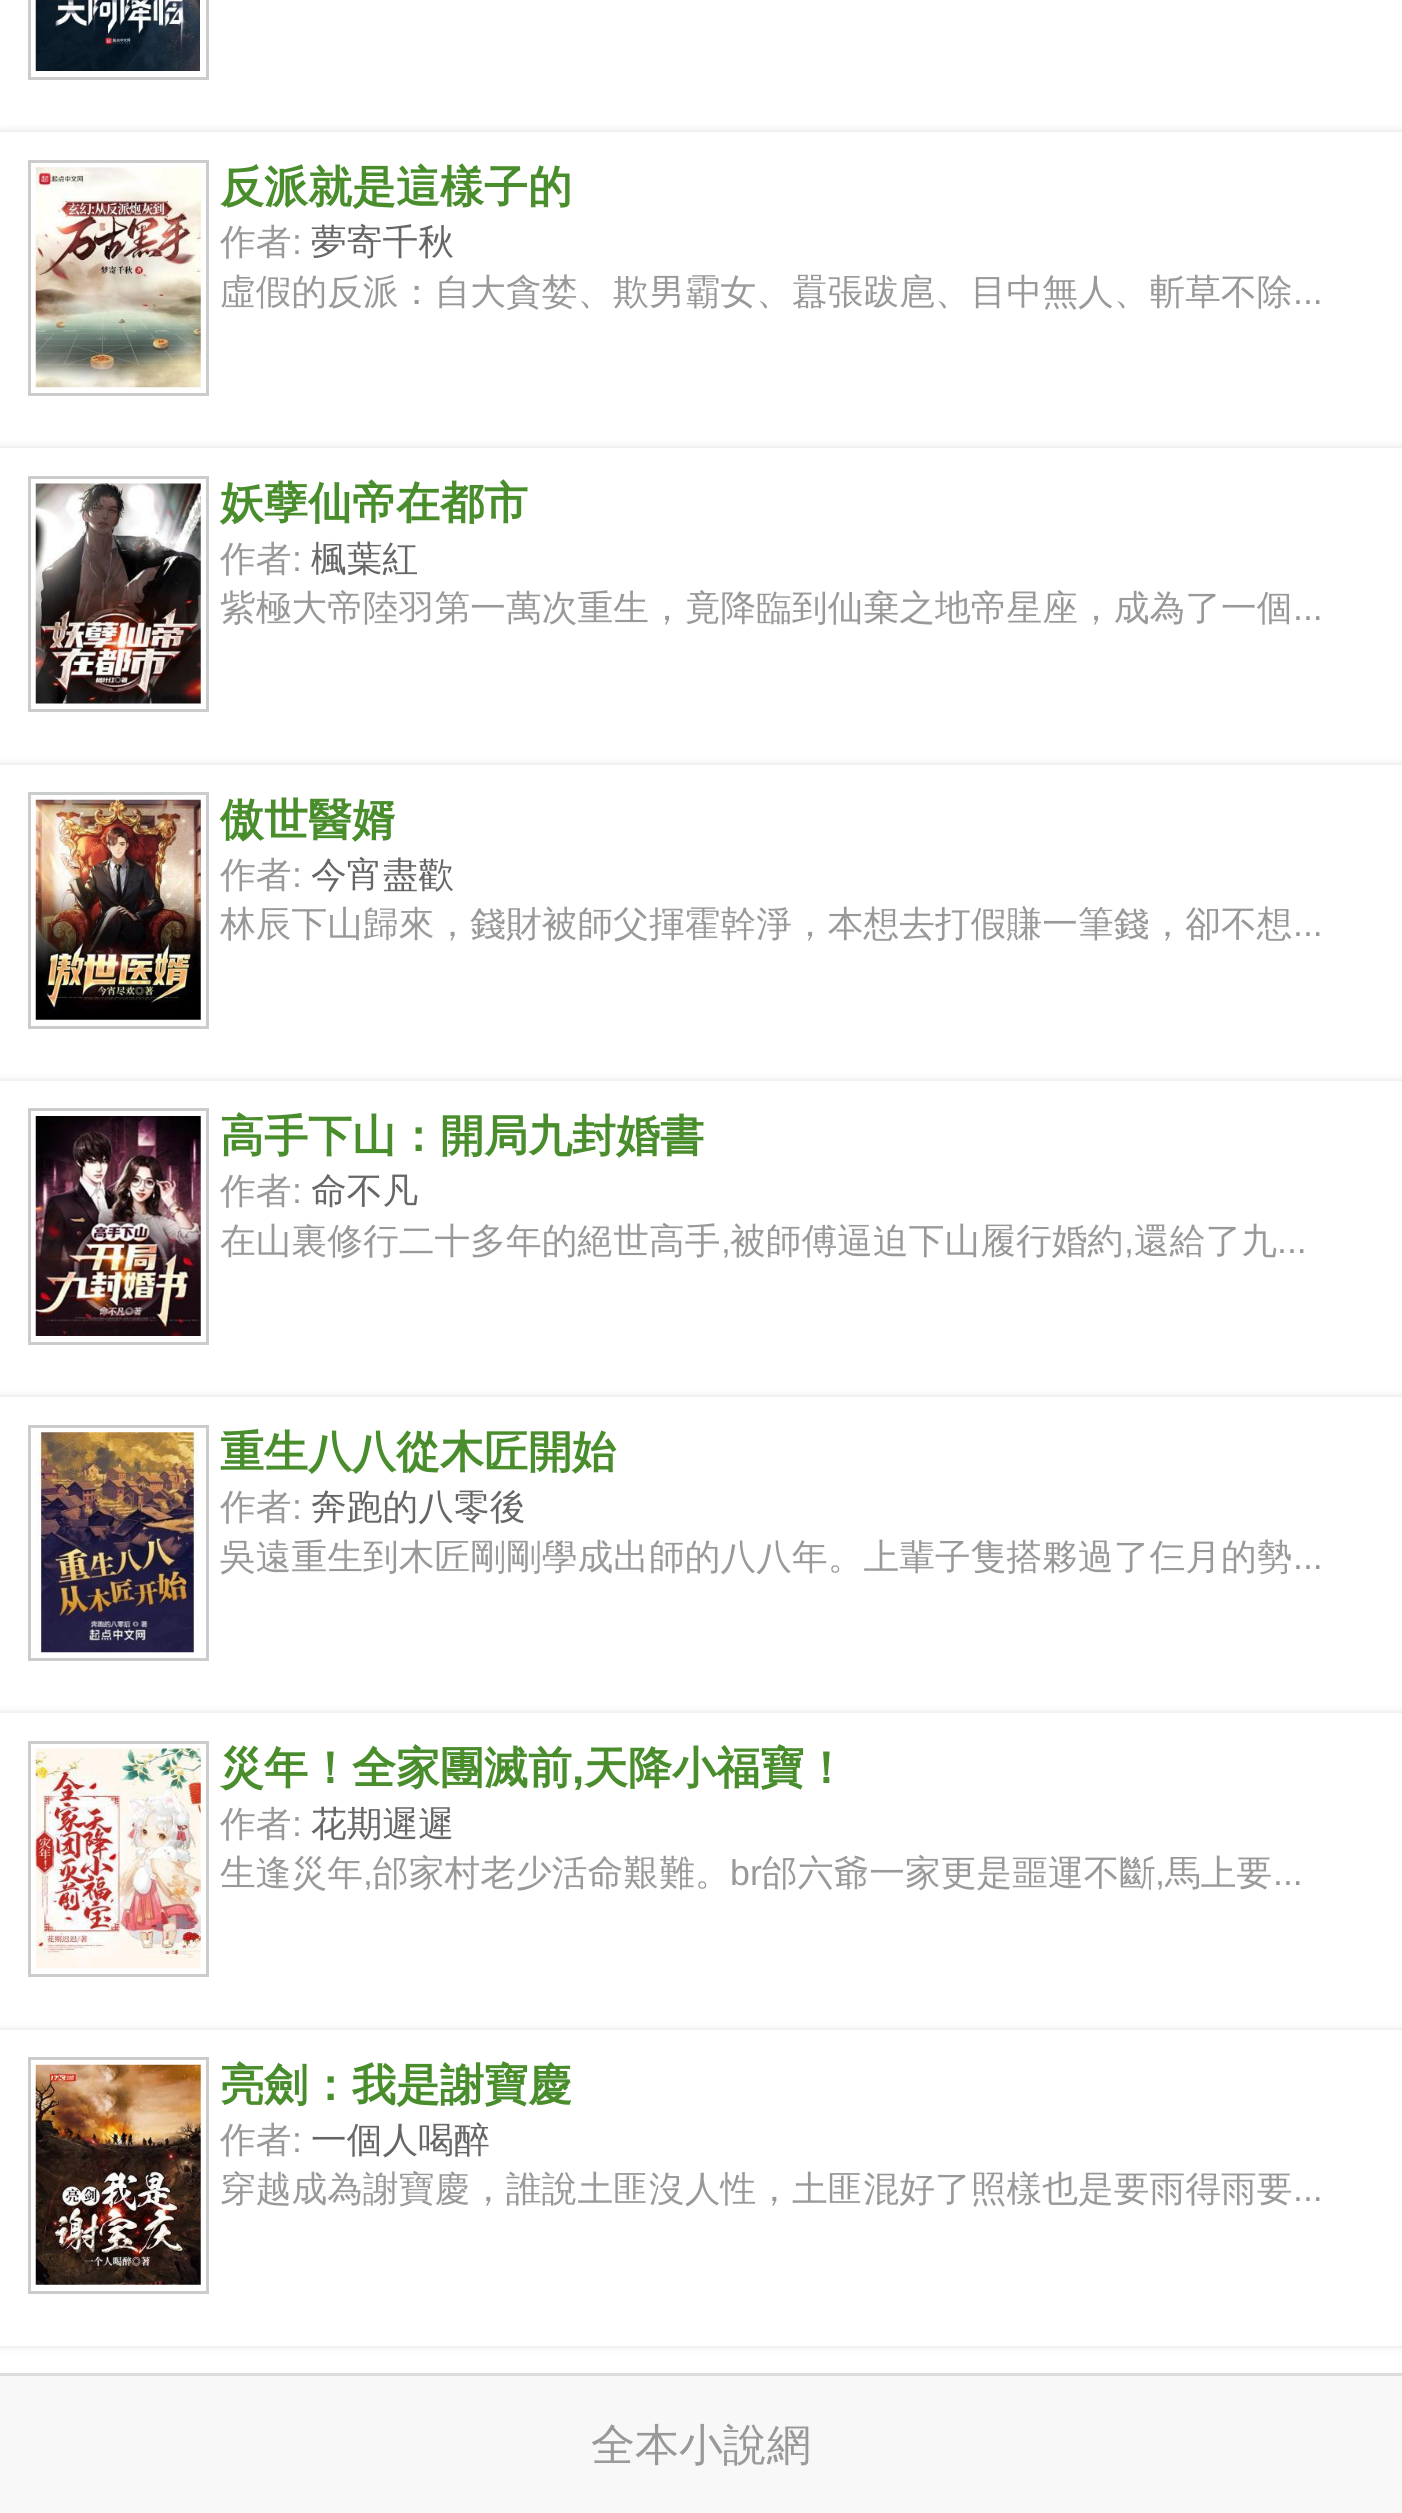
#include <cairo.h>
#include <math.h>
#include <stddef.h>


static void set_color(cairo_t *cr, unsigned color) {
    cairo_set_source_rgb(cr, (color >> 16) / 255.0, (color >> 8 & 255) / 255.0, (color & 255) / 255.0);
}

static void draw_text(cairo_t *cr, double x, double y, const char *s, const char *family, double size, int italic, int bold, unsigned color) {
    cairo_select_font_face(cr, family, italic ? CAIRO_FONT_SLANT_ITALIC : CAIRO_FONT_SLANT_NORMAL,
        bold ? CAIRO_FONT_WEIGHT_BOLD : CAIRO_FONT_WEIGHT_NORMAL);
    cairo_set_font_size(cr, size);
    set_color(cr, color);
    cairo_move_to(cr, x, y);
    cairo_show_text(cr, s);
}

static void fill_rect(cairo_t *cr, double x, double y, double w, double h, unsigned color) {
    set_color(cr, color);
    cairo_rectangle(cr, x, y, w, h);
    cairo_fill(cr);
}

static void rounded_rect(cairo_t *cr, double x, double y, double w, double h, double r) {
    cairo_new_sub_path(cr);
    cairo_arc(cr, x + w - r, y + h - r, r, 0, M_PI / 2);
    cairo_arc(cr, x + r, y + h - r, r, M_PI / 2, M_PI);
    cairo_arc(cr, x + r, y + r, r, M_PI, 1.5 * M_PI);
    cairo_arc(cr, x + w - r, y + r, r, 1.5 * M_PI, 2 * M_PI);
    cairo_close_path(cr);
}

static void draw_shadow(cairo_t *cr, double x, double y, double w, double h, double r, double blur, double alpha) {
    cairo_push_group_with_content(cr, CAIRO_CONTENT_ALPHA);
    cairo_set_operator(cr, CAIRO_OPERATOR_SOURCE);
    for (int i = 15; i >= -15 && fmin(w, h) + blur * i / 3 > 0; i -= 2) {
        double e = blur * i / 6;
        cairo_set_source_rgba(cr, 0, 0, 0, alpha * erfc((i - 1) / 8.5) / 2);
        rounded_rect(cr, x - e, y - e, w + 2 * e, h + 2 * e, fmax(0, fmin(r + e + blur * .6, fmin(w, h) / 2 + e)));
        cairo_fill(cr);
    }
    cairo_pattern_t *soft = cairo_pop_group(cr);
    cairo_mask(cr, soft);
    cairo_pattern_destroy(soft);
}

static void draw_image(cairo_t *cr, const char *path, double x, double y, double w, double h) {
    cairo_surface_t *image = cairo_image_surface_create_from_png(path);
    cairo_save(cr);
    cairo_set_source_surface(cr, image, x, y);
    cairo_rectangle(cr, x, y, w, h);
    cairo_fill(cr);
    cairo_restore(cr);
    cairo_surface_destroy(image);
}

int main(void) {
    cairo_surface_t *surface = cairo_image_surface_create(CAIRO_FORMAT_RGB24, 1402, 2513);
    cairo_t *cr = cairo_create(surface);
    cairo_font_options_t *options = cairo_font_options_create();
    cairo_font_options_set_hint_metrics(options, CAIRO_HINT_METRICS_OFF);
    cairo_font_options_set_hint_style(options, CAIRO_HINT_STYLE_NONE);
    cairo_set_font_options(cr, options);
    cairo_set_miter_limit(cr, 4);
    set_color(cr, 0xFFFFFF);
    cairo_paint(cr);
    cairo_rectangle(cr, 29.5, -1.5, 178, 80);
    set_color(cr, 0xCCCCCC);
    cairo_set_line_width(cr, 3);
    cairo_stroke(cr);
    draw_image(cr, "assets/img1.png", 35, 0, 166, 71);
    set_color(cr, 0xDDDDDD);
    draw_shadow(cr, 0, 132, 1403, 316, 0, 4, 1);
    fill_rect(cr, 0, 132, 1402, 316, 0xFFFFFF);
    cairo_rectangle(cr, 29.5, 161.5, 178, 233);
    set_color(cr, 0xCCCCCC);
    cairo_stroke(cr);
    draw_image(cr, "assets/img2.png", 35, 167, 166, 221);
    draw_text(cr, 220, 202, "反派就是這樣子的", "WenQuanYi Zen Hei", 44, 0, 1, 0x4A8D2D);
    draw_text(cr, 220, 254, "作者", "WenQuanYi Zen Hei Medium", 35.75, 0, 0, 0x999999);
    draw_text(cr, 292, 254, ":", "Liberation Sans", 35.75, 0, 0, 0x999999);
    draw_text(cr, 311, 254, "夢寄千秋", "WenQuanYi Zen Hei Medium", 35.75, 0, 0, 0x666666);
    draw_text(cr, 220, 304, "虛假的反派：自大貪婪、欺男霸女、囂張跋扈、目中無人、斬草不除", "WenQuanYi Zen Hei Medium", 35.75, 0, 0, 0x999999);
    draw_text(cr, 1293, 304, "...", "Liberation Sans", 35.75, 0, 0, 0x999999);
    set_color(cr, 0xDDDDDD);
    draw_shadow(cr, 0, 448, 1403, 317, 0, 4, 1);
    fill_rect(cr, 0, 448, 1402, 317, 0xFFFFFF);
    cairo_rectangle(cr, 29.5, 477.5, 178, 233);
    set_color(cr, 0xCCCCCC);
    cairo_stroke(cr);
    draw_image(cr, "assets/img3.png", 35, 483, 166, 221);
    draw_text(cr, 220, 518, "妖孽仙帝在都市", "WenQuanYi Zen Hei", 44, 0, 1, 0x4A8D2D);
    draw_text(cr, 220, 571, "作者", "WenQuanYi Zen Hei Medium", 35.75, 0, 0, 0x999999);
    draw_text(cr, 292, 571, ":", "Liberation Sans", 35.75, 0, 0, 0x999999);
    draw_text(cr, 311, 571, "楓葉紅", "WenQuanYi Zen Hei Medium", 35.75, 0, 0, 0x666666);
    draw_text(cr, 220, 620, "紫極大帝陸羽第一萬次重生，竟降臨到仙棄之地帝星座，成為了一個", "WenQuanYi Zen Hei Medium", 35.75, 0, 0, 0x999999);
    draw_text(cr, 1293, 620, "...", "Liberation Sans", 35.75, 0, 0, 0x999999);
    set_color(cr, 0xDDDDDD);
    draw_shadow(cr, 0, 765, 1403, 316, 0, 4, 1);
    fill_rect(cr, 0, 765, 1402, 316, 0xFFFFFF);
    cairo_rectangle(cr, 29.5, 793.5, 178, 234);
    set_color(cr, 0xCCCCCC);
    cairo_stroke(cr);
    draw_image(cr, "assets/img4.png", 35, 799, 166, 221);
    draw_text(cr, 220, 835, "傲世醫婿", "WenQuanYi Zen Hei", 44, 0, 1, 0x4A8D2D);
    draw_text(cr, 220, 887, "作者", "WenQuanYi Zen Hei Medium", 35.75, 0, 0, 0x999999);
    draw_text(cr, 292, 887, ":", "Liberation Sans", 35.75, 0, 0, 0x999999);
    draw_text(cr, 311, 887, "今宵盡歡", "WenQuanYi Zen Hei Medium", 35.75, 0, 0, 0x666666);
    draw_text(cr, 220, 936, "林辰下山歸來，錢財被師父揮霍幹淨，本想去打假賺一筆錢，卻不想", "WenQuanYi Zen Hei Medium", 35.75, 0, 0, 0x999999);
    draw_text(cr, 1293, 936, "...", "Liberation Sans", 35.75, 0, 0, 0x999999);
    set_color(cr, 0xDDDDDD);
    draw_shadow(cr, 0, 1081, 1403, 316, 0, 4, 1);
    fill_rect(cr, 0, 1081, 1402, 316, 0xFFFFFF);
    cairo_rectangle(cr, 29.5, 1109.5, 178, 234);
    set_color(cr, 0xCCCCCC);
    cairo_stroke(cr);
    draw_image(cr, "assets/img5.png", 35, 1116, 166, 220);
    draw_text(cr, 220, 1151, "高手下山：開局九封婚書", "WenQuanYi Zen Hei", 44, 0, 1, 0x4A8D2D);
    draw_text(cr, 220, 1203, "作者", "WenQuanYi Zen Hei Medium", 35.75, 0, 0, 0x999999);
    draw_text(cr, 292, 1203, ":", "Liberation Sans", 35.75, 0, 0, 0x999999);
    draw_text(cr, 311, 1203, "命不凡", "WenQuanYi Zen Hei Medium", 35.75, 0, 0, 0x666666);
    draw_text(cr, 220, 1253, "在山裏修行二十多年的絕世高手", "WenQuanYi Zen Hei Medium", 35.75, 0, 0, 0x999999);
    draw_text(cr, 721, 1253, ",", "Liberation Sans", 35.75, 0, 0, 0x999999);
    draw_text(cr, 730, 1253, "被師傅逼迫下山履行婚約", "WenQuanYi Zen Hei Medium", 35.75, 0, 0, 0x999999);
    draw_text(cr, 1124, 1253, ",", "Liberation Sans", 35.75, 0, 0, 0x999999);
    draw_text(cr, 1134, 1253, "還給了九", "WenQuanYi Zen Hei Medium", 35.75, 0, 0, 0x999999);
    draw_text(cr, 1277, 1253, "...", "Liberation Sans", 35.75, 0, 0, 0x999999);
    set_color(cr, 0xDDDDDD);
    draw_shadow(cr, 0, 1397, 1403, 316, 0, 4, 1);
    fill_rect(cr, 0, 1397, 1402, 316, 0xFFFFFF);
    cairo_rectangle(cr, 29.5, 1426.5, 178, 233);
    set_color(cr, 0xCCCCCC);
    cairo_stroke(cr);
    draw_image(cr, "assets/img6.png", 36, 1432, 163, 221);
    draw_text(cr, 220, 1467, "重生八八從木匠開始", "WenQuanYi Zen Hei", 44, 0, 1, 0x4A8D2D);
    draw_text(cr, 220, 1519, "作者", "WenQuanYi Zen Hei Medium", 35.75, 0, 0, 0x999999);
    draw_text(cr, 292, 1519, ":", "Liberation Sans", 35.75, 0, 0, 0x999999);
    draw_text(cr, 311, 1519, "奔跑的八零後", "WenQuanYi Zen Hei Medium", 35.75, 0, 0, 0x666666);
    draw_text(cr, 220, 1569, "吳遠重生到木匠剛剛學成出師的八八年。上輩子隻搭夥過了仨月的勢", "WenQuanYi Zen Hei Medium", 35.75, 0, 0, 0x999999);
    draw_text(cr, 1293, 1569, "...", "Liberation Sans", 35.75, 0, 0, 0x999999);
    set_color(cr, 0xDDDDDD);
    draw_shadow(cr, 0, 1713, 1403, 317, 0, 4, 1);
    fill_rect(cr, 0, 1713, 1402, 317, 0xFFFFFF);
    cairo_rectangle(cr, 29.5, 1742.5, 178, 233);
    set_color(cr, 0xCCCCCC);
    cairo_stroke(cr);
    draw_image(cr, "assets/img7.png", 35, 1748, 166, 221);
    draw_text(cr, 220, 1783, "災年！全家團滅前", "WenQuanYi Zen Hei", 44, 0, 1, 0x4A8D2D);
    draw_text(cr, 572, 1783, ",", "Liberation Sans", 44, 0, 1, 0x4A8D2D);
    draw_text(cr, 584, 1783, "天降小福寶！", "WenQuanYi Zen Hei", 44, 0, 1, 0x4A8D2D);
    draw_text(cr, 220, 1836, "作者", "WenQuanYi Zen Hei Medium", 35.75, 0, 0, 0x999999);
    draw_text(cr, 292, 1836, ":", "Liberation Sans", 35.75, 0, 0, 0x999999);
    draw_text(cr, 311, 1836, "花期遲遲", "WenQuanYi Zen Hei Medium", 35.75, 0, 0, 0x666666);
    draw_text(cr, 220, 1885, "生逢災年", "WenQuanYi Zen Hei Medium", 35.75, 0, 0, 0x999999);
    draw_text(cr, 363, 1885, ",", "Liberation Sans", 35.75, 0, 0, 0x999999);
    draw_text(cr, 373, 1885, "邰家村老少活命艱難。", "WenQuanYi Zen Hei Medium", 35.75, 0, 0, 0x999999);
    draw_text(cr, 730, 1885, "br", "Liberation Sans", 35.75, 0, 0, 0x999999);
    draw_text(cr, 762, 1885, "邰六爺一家更是噩運不斷", "WenQuanYi Zen Hei Medium", 35.75, 0, 0, 0x999999);
    draw_text(cr, 1155, 1885, ",", "Liberation Sans", 35.75, 0, 0, 0x999999);
    draw_text(cr, 1165, 1885, "馬上要", "WenQuanYi Zen Hei Medium", 35.75, 0, 0, 0x999999);
    draw_text(cr, 1273, 1885, "...", "Liberation Sans", 35.75, 0, 0, 0x999999);
    set_color(cr, 0xDDDDDD);
    draw_shadow(cr, 0, 2030, 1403, 316, 0, 4, 1);
    fill_rect(cr, 0, 2030, 1402, 316, 0xFFFFFF);
    cairo_rectangle(cr, 29.5, 2058.5, 178, 234);
    set_color(cr, 0xCCCCCC);
    cairo_stroke(cr);
    draw_image(cr, "assets/img8.png", 35, 2064, 166, 221);
    draw_text(cr, 220, 2100, "亮劍：我是謝寶慶", "WenQuanYi Zen Hei", 44, 0, 1, 0x4A8D2D);
    draw_text(cr, 220, 2152, "作者", "WenQuanYi Zen Hei Medium", 35.75, 0, 0, 0x999999);
    draw_text(cr, 292, 2152, ":", "Liberation Sans", 35.75, 0, 0, 0x999999);
    draw_text(cr, 311, 2152, "一個人喝醉", "WenQuanYi Zen Hei Medium", 35.75, 0, 0, 0x666666);
    draw_text(cr, 220, 2201, "穿越成為謝寶慶，誰說土匪沒人性，土匪混好了照樣也是要雨得雨要", "WenQuanYi Zen Hei Medium", 35.75, 0, 0, 0x999999);
    draw_text(cr, 1293, 2201, "...", "Liberation Sans", 35.75, 0, 0, 0x999999);
    fill_rect(cr, 0, 2376, 1402, 137, 0xF8F8F8);
    fill_rect(cr, 0, 2373, 1402, 3, 0xDDDDDD);
    draw_text(cr, 591, 2460, "全本小說網", "WenQuanYi Zen Hei Medium", 44, 0, 0, 0x999999);
    cairo_surface_write_to_png(surface, "output.png");
    cairo_font_options_destroy(options);
    cairo_destroy(cr);
    cairo_surface_destroy(surface);
    return 0;
}
